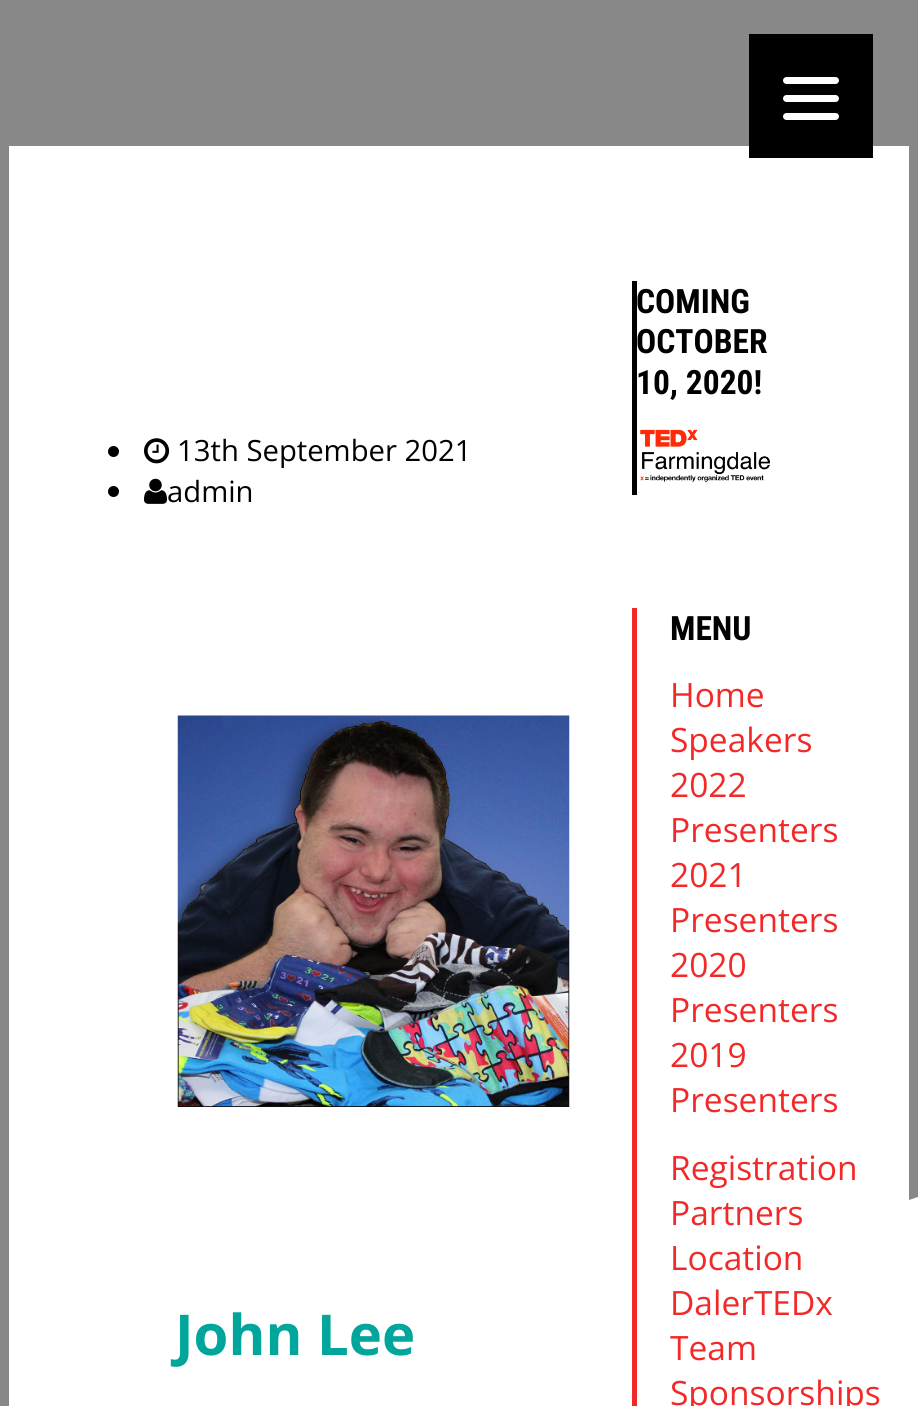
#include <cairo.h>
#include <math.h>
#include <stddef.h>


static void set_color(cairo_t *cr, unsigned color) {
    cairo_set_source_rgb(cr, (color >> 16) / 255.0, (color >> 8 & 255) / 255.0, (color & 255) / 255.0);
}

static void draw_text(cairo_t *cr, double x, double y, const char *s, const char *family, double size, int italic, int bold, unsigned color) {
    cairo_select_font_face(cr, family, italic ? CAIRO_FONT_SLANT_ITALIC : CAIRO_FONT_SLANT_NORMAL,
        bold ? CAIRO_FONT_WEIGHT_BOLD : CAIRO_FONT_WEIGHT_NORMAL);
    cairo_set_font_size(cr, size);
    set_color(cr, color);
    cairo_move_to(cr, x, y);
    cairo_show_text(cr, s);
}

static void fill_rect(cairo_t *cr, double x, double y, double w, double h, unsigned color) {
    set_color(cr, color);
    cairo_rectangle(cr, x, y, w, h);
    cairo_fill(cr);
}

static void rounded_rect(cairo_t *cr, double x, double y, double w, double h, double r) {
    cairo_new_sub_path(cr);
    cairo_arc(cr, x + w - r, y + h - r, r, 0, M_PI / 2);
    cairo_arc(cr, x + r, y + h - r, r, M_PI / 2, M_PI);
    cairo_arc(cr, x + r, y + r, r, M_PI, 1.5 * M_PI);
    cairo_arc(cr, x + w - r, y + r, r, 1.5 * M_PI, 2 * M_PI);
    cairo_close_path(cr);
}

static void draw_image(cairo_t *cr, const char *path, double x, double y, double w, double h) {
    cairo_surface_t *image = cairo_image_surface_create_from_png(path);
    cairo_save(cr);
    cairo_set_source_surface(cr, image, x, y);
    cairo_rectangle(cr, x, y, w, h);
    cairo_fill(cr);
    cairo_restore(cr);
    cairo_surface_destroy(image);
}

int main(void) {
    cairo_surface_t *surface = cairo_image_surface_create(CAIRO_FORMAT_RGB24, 918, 1406);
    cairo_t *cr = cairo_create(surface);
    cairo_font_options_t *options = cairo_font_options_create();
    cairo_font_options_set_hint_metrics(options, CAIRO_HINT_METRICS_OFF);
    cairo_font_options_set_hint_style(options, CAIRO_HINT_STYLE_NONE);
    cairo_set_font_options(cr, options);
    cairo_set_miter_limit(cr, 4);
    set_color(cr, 0xFFFFFF);
    cairo_paint(cr);
    set_color(cr, 0x888888);
    cairo_new_path(cr);
    cairo_move_to(cr, 0, 0);
    cairo_line_to(cr, 0, 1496);
    cairo_line_to(cr, 918, 1197);
    cairo_line_to(cr, 918, 0);
    cairo_close_path(cr);
    cairo_fill(cr);
    fill_rect(cr, 9, 146, 900, 1260, 0xFFFFFF);
    fill_rect(cr, 749, 34, 124, 124, 0x000000);
    set_color(cr, 0xFFFFFF);
    rounded_rect(cr, 783, 95, 56, 7, 3.5);
    cairo_fill(cr);
    rounded_rect(cr, 783, 77, 56, 7, 3.5);
    cairo_fill(cr);
    rounded_rect(cr, 783, 113, 56, 7, 3.5);
    cairo_fill(cr);
    set_color(cr, 0x000000);
    cairo_arc(cr, 113.5, 451.5, 5.5, 0, 2 * M_PI);
    cairo_fill(cr);
    draw_image(cr, "assets/img1.png", 144, 438, 26, 26);
    draw_text(cr, 177, 461, "13th September 2021", "Open Sans", 29.25, 0, 0, 0x000000);
    cairo_new_path(cr);
    cairo_arc(cr, 113.5, 491.5, 5.5, 0, 2 * M_PI);
    cairo_fill(cr);
    draw_image(cr, "assets/img2.png", 144, 478, 23, 26);
    draw_text(cr, 167, 502, "admin", "Open Sans", 29.25, 0, 0, 0x000000);
    draw_image(cr, "assets/img3.png", 177, 715, 393, 392);
    draw_text(cr, 175, 1355, "John Lee", "Open Sans", 56.25, 0, 1, 0x00A59B);
    fill_rect(cr, 632, 281, 5, 214, 0x000000);
    draw_text(cr, 636, 313, "COMING", "Roboto Condensed", 33.5, 0, 1, 0x000000);
    draw_text(cr, 636, 353, "OCTOBER", "Roboto Condensed", 33.5, 0, 1, 0x000000);
    draw_text(cr, 636, 394, "10, 2020!", "Roboto Condensed", 33.5, 0, 1, 0x000000);
    draw_image(cr, "assets/img4.png", 640, 429, 130, 53);
    fill_rect(cr, 632, 608, 5, 798, 0xF22929);
    draw_text(cr, 670, 640, "MENU", "Roboto Condensed", 33.5, 0, 1, 0x000000);
    draw_text(cr, 670, 707, "Home", "Open Sans", 33.5, 0, 0, 0xF22929);
    draw_text(cr, 670, 752, "Speakers", "Open Sans", 33.5, 0, 0, 0xF22929);
    draw_text(cr, 670, 797, "2022", "Open Sans", 33.5, 0, 0, 0xF22929);
    draw_text(cr, 670, 842, "Presenters", "Open Sans", 33.5, 0, 0, 0xF22929);
    draw_text(cr, 670, 887, "2021", "Open Sans", 33.5, 0, 0, 0xF22929);
    draw_text(cr, 670, 932, "Presenters", "Open Sans", 33.5, 0, 0, 0xF22929);
    draw_text(cr, 670, 977, "2020", "Open Sans", 33.5, 0, 0, 0xF22929);
    draw_text(cr, 670, 1022, "Presenters", "Open Sans", 33.5, 0, 0, 0xF22929);
    draw_text(cr, 670, 1067, "2019", "Open Sans", 33.5, 0, 0, 0xF22929);
    draw_text(cr, 670, 1112, "Presenters", "Open Sans", 33.5, 0, 0, 0xF22929);
    draw_text(cr, 670, 1180, "Registration", "Open Sans", 33.5, 0, 0, 0xF22929);
    draw_text(cr, 670, 1225, "Partners", "Open Sans", 33.5, 0, 0, 0xF22929);
    draw_text(cr, 670, 1270, "Location", "Open Sans", 33.5, 0, 0, 0xF22929);
    draw_text(cr, 670, 1315, "DalerTEDx", "Open Sans", 33.5, 0, 0, 0xF22929);
    draw_text(cr, 670, 1360, "Team", "Open Sans", 33.5, 0, 0, 0xF22929);
    draw_text(cr, 670, 1405, "Sponsorships", "Open Sans", 33.5, 0, 0, 0xF22929);
    cairo_surface_write_to_png(surface, "output.png");
    cairo_font_options_destroy(options);
    cairo_destroy(cr);
    cairo_surface_destroy(surface);
    return 0;
}
